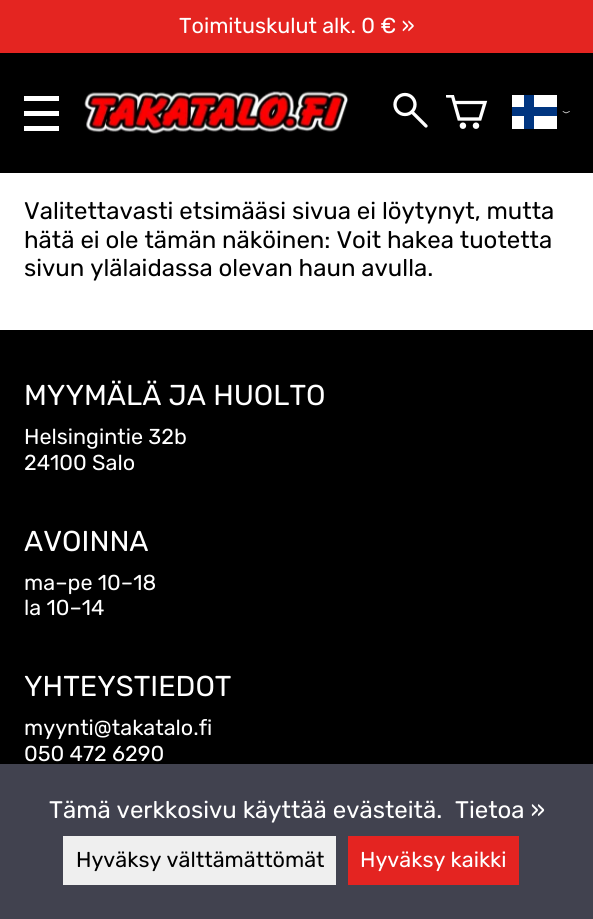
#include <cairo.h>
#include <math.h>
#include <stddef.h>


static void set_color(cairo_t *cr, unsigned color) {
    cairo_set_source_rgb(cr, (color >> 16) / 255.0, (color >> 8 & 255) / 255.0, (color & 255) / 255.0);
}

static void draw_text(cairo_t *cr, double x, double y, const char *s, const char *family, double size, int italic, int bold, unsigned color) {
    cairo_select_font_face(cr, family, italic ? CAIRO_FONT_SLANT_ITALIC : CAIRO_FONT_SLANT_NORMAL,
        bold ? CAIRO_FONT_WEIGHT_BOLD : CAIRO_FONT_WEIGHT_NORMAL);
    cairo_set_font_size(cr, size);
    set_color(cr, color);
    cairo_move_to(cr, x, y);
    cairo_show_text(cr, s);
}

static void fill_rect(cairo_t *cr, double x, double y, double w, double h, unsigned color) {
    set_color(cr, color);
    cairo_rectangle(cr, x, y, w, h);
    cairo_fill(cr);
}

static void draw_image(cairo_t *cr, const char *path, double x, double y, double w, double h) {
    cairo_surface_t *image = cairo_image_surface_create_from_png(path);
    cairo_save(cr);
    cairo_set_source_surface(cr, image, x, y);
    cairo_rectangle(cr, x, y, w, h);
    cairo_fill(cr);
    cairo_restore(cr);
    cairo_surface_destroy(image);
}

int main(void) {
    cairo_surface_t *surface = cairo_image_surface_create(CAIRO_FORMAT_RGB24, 593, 919);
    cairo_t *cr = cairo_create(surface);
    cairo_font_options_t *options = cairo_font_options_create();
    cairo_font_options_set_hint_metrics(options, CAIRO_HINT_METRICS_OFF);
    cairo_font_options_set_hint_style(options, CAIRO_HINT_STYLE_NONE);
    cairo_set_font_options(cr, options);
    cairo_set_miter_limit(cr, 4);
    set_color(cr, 0xFFFFFF);
    cairo_paint(cr);
    fill_rect(cr, 0, 0, 593, 53, 0xE42521);
    draw_text(cr, 179, 33, "Toimituskulut alk. 0 € »", "Rubik Light", 21.6, 0, 0, 0xFFFFFF);
    fill_rect(cr, 0, 53, 593, 120, 0x000000);
    fill_rect(cr, 24, 96, 35, 5, 0xFFFFFF);
    fill_rect(cr, 24, 126, 35, 5, 0xFFFFFF);
    fill_rect(cr, 24, 111, 35, 5, 0xFFFFFF);
    draw_image(cr, "assets/img1.png", 84, 91, 265, 43);
    cairo_new_path(cr);
    cairo_move_to(cr, 426, 126);
    cairo_line_to(cr, 412, 112);
    cairo_set_line_width(cr, 3.3);
    cairo_set_line_cap(cr, CAIRO_LINE_CAP_ROUND);
    cairo_stroke(cr);
    cairo_arc(cr, 405, 104.5, 10, 0, 2 * M_PI);
    cairo_set_line_cap(cr, CAIRO_LINE_CAP_BUTT);
    cairo_stroke(cr);
    cairo_save(cr);
    cairo_rectangle(cr, 446, 95, 42, 34);
    cairo_clip(cr);
    cairo_new_path(cr);
    cairo_move_to(cr, 454.5, 102.5);
    cairo_line_to(cr, 485, 102.5);
    cairo_line_to(cr, 480, 119);
    cairo_line_to(cr, 459, 119);
    cairo_line_to(cr, 452.5, 96);
    cairo_line_to(cr, 447, 96);
    cairo_set_line_cap(cr, CAIRO_LINE_CAP_ROUND);
    cairo_stroke(cr);
    cairo_restore(cr);
    cairo_arc(cr, 462.9, 125.7, 1.6, 0, 2 * M_PI);
    cairo_stroke(cr);
    cairo_arc(cr, 476, 125.7, 1.6, 0, 2 * M_PI);
    cairo_stroke(cr);
    fill_rect(cr, 512, 95, 45, 34, 0xFFFFFF);
    fill_rect(cr, 512, 107, 45, 9, 0x003580);
    fill_rect(cr, 524, 95, 10, 34, 0x003580);
    cairo_new_path(cr);
    cairo_move_to(cr, 563, 111.5);
    cairo_line_to(cr, 566, 113);
    cairo_line_to(cr, 569.5, 111.5);
    set_color(cr, 0xFFFFFF);
    cairo_set_line_width(cr, 0.7);
    cairo_set_line_cap(cr, CAIRO_LINE_CAP_ROUND);
    cairo_stroke(cr);
    draw_text(cr, 24, 219, "Valitettavasti etsimääsi sivua ei löytynyt, mutta", "Rubik Light", 24, 0, 0, 0x000000);
    draw_text(cr, 24, 248, "hätä ei ole tämän näköinen: Voit hakea tuotetta", "Rubik Light", 24, 0, 0, 0x000000);
    draw_text(cr, 24, 276, "sivun ylälaidassa olevan haun avulla.", "Rubik Light", 24, 0, 0, 0x000000);
    fill_rect(cr, 0, 330, 593, 434, 0x000000);
    draw_text(cr, 24, 405, "MYYMÄLÄ JA HUOLTO", "Rubik Light", 28.75, 0, 0, 0xFFFFFF);
    draw_text(cr, 24, 444, "Helsingintie 32b", "Rubik Light", 21.6, 0, 0, 0xFFFFFF);
    draw_text(cr, 24, 470, "24100 Salo", "Rubik Light", 21.6, 0, 0, 0xFFFFFF);
    draw_text(cr, 24, 551, "AVOINNA", "Rubik Light", 28.75, 0, 0, 0xFFFFFF);
    draw_text(cr, 24, 590, "ma–pe 10–18", "Rubik Light", 21.6, 0, 0, 0xFFFFFF);
    draw_text(cr, 24, 615, "la 10–14", "Rubik Light", 21.6, 0, 0, 0xFFFFFF);
    draw_text(cr, 24, 696, "YHTEYSTIEDOT", "Rubik Light", 28.75, 0, 0, 0xFFFFFF);
    draw_text(cr, 24, 735, "myynti@takatalo.fi", "Rubik Light", 21.6, 0, 0, 0xFFFFFF);
    draw_text(cr, 24, 761, "050 472 6290", "Rubik Light", 21.6, 0, 0, 0xFFFFFF);
    fill_rect(cr, 0, 764, 593, 155, 0x41424F);
    draw_text(cr, 49, 818, "Tämä verkkosivu käyttää evästeitä.", "Rubik Light", 24, 0, 0, 0xFFFFFF);
    draw_text(cr, 455, 818, "Tietoa »", "Rubik Light", 24, 0, 0, 0xFFFFFF);
    fill_rect(cr, 63, 836, 273, 49, 0xEFEFEF);
    draw_text(cr, 76, 867, "Hyväksy välttämättömät", "Rubik Light", 21.6, 0, 0, 0x000000);
    fill_rect(cr, 348, 836, 171, 49, 0xE42421);
    draw_text(cr, 360, 867, "Hyväksy kaikki", "Rubik Light", 21.6, 0, 0, 0xFFFFFF);
    cairo_surface_write_to_png(surface, "output.png");
    cairo_font_options_destroy(options);
    cairo_destroy(cr);
    cairo_surface_destroy(surface);
    return 0;
}
